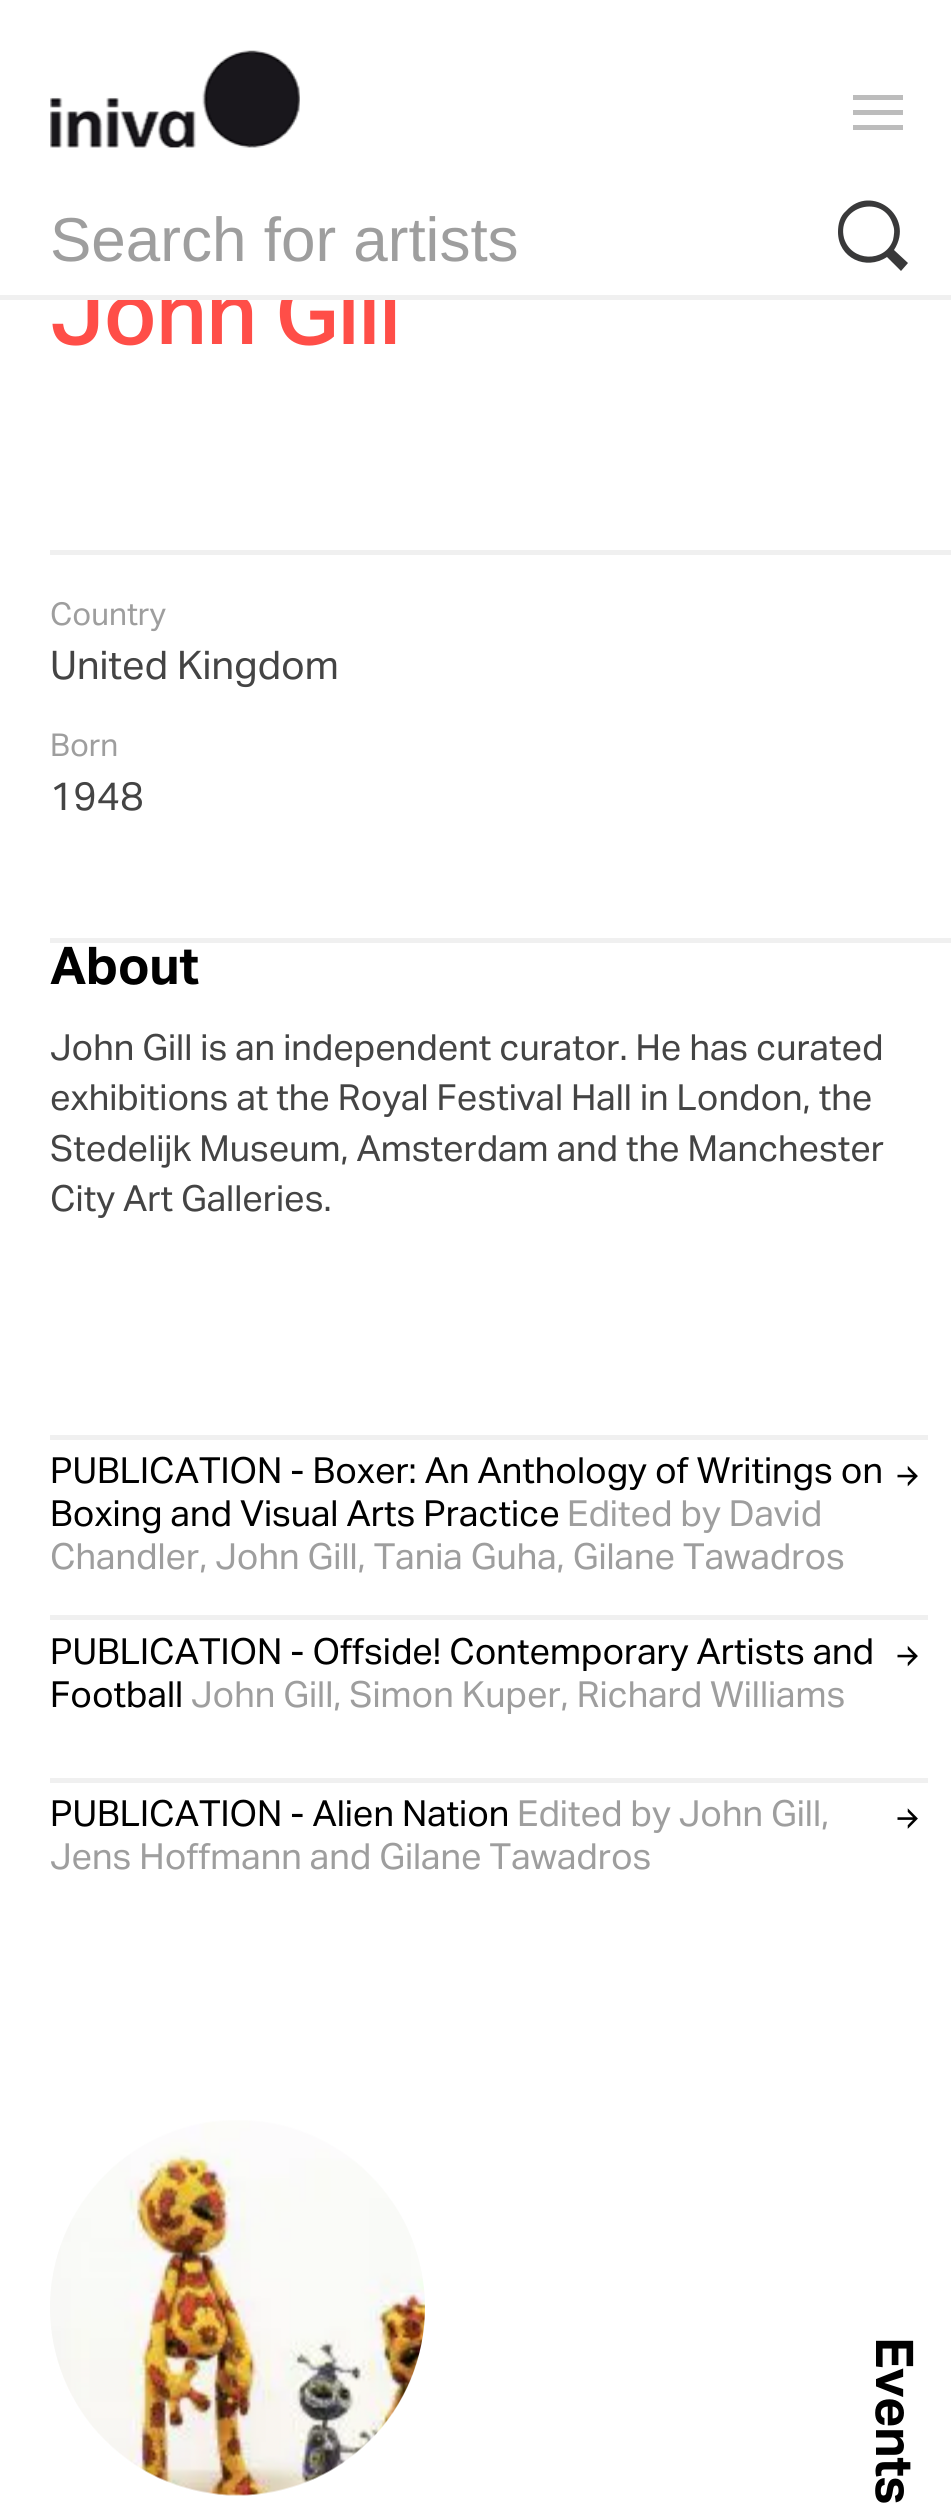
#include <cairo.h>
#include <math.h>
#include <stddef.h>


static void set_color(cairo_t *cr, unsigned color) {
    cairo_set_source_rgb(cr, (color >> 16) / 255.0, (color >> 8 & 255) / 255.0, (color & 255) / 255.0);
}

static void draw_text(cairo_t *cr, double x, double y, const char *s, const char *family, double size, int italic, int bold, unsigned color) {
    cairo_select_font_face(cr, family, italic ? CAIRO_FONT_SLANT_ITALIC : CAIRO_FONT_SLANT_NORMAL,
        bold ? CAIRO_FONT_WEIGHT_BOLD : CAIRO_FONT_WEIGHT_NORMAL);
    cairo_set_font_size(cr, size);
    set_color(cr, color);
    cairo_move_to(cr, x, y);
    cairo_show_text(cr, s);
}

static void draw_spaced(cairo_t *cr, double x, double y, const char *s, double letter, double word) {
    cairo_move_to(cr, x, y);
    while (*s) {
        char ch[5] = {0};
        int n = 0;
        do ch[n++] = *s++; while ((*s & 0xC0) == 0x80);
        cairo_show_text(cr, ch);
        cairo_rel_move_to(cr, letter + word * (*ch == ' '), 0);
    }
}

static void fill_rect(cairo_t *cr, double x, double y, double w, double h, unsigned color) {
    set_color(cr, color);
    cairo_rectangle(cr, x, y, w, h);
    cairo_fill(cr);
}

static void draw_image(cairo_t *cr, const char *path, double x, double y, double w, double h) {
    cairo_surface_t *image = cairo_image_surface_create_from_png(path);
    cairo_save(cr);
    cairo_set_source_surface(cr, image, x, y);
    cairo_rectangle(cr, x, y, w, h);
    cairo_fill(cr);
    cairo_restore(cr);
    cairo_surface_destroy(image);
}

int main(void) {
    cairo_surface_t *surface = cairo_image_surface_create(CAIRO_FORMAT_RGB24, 951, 2516);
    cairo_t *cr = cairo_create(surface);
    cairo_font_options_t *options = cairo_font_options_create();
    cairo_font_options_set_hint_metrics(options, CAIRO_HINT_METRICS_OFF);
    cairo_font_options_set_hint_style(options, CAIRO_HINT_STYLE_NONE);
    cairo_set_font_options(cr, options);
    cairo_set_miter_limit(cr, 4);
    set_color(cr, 0xFFFFFF);
    cairo_paint(cr);
    draw_image(cr, "assets/img1.png", 50, 50, 250, 98);
    fill_rect(cr, 853, 95, 50, 5, 0xBCBCBC);
    fill_rect(cr, 853, 110, 50, 5, 0xBCBCBC);
    fill_rect(cr, 853, 125, 50, 5, 0xBCBCBC);
    cairo_select_font_face(cr, "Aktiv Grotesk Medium", CAIRO_FONT_SLANT_NORMAL, CAIRO_FONT_WEIGHT_NORMAL);
    cairo_set_font_size(cr, 88);
    set_color(cr, 0xFF4E48);
    draw_spaced(cr, 50, 344, "John Gill", -0.9, 0);
    fill_rect(cr, 87, 279, 309, 16, 0xFFFFFF);
    fill_rect(cr, 0, 295, 951, 5, 0xF0F0F0);
    draw_text(cr, 50, 261, "Search for artists", "Liberation Sans", 62, 0, 0, 0x9E9E9E);
    set_color(cr, 0x39393A);
    cairo_new_path(cr);
    cairo_move_to(cr, 838, 232);
    cairo_curve_to(cr, 838, 224, 840, 216, 846, 211);
    cairo_curve_to(cr, 871, 183, 916, 216, 894, 250);
    cairo_line_to(cr, 908, 263);
    cairo_line_to(cr, 901, 271);
    cairo_line_to(cr, 887, 257);
    cairo_curve_to(cr, 866, 271, 838, 258, 838, 232);
    cairo_close_path(cr);
    cairo_move_to(cr, 844, 238);
    cairo_curve_to(cr, 851, 262, 885, 263, 893, 240);
    cairo_curve_to(cr, 894, 235, 895, 230, 893, 225);
    cairo_curve_to(cr, 884, 193, 836, 206, 844, 238);
    cairo_close_path(cr);
    cairo_fill(cr);
    fill_rect(cr, 50, 550, 901, 5, 0xF0F0F0);
    draw_text(cr, 50, 625, "Country", "Aktiv Grotesk", 31.5, 0, 0, 0x9E9E9E);
    draw_text(cr, 50, 679, "United Kingdom", "Aktiv Grotesk", 39.5, 0, 0, 0x444444);
    draw_text(cr, 50, 756, "Born", "Aktiv Grotesk", 31.5, 0, 0, 0x9E9E9E);
    draw_text(cr, 50, 810, "1948", "Aktiv Grotesk", 39.5, 0, 0, 0x444444);
    fill_rect(cr, 50, 938, 901, 5, 0xF0F0F0);
    cairo_select_font_face(cr, "Aktiv Grotesk", CAIRO_FONT_SLANT_NORMAL, CAIRO_FONT_WEIGHT_BOLD);
    cairo_set_font_size(cr, 52);
    set_color(cr, 0x000000);
    draw_spaced(cr, 50, 984, "About", -0.5, 0);
    draw_text(cr, 50, 1060, "John Gill is an independent curator. He has curated", "Aktiv Grotesk", 36, 0, 0, 0x444444);
    draw_text(cr, 50, 1110, "exhibitions at the Royal Festival Hall in London, the", "Aktiv Grotesk", 36, 0, 0, 0x444444);
    draw_text(cr, 50, 1161, "Stedelijk Museum, Amsterdam and the Manchester", "Aktiv Grotesk", 36, 0, 0, 0x444444);
    draw_text(cr, 50, 1211, "City Art Galleries.", "Aktiv Grotesk", 36, 0, 0, 0x444444);
    fill_rect(cr, 50, 1435, 878, 5, 0xF0F0F0);
    draw_text(cr, 50, 1483, "PUBLICATION - Boxer: An Anthology of Writings on", "Aktiv Grotesk", 36, 0, 0, 0x000000);
    draw_text(cr, 50, 1526, "Boxing and Visual Arts Practice", "Aktiv Grotesk", 36, 0, 0, 0x000000);
    draw_text(cr, 567, 1526, "Edited by David", "Aktiv Grotesk", 36, 0, 0, 0x9E9E9E);
    draw_text(cr, 50, 1569, "Chandler, John Gill, Tania Guha, Gilane Tawadros", "Aktiv Grotesk", 36, 0, 0, 0x9E9E9E);
    draw_image(cr, "assets/img2.png", 897, 1465, 21, 22);
    fill_rect(cr, 50, 1615, 878, 5, 0xF0F0F0);
    draw_text(cr, 50, 1664, "PUBLICATION - Offside! Contemporary Artists and", "Aktiv Grotesk", 36, 0, 0, 0x000000);
    draw_text(cr, 50, 1707, "Football", "Aktiv Grotesk", 36, 0, 0, 0x000000);
    draw_text(cr, 191, 1707, "John Gill, Simon Kuper, Richard Williams", "Aktiv Grotesk", 36, 0, 0, 0x9E9E9E);
    draw_image(cr, "assets/img2.png", 897, 1645, 21, 22);
    fill_rect(cr, 50, 1778, 878, 5, 0xF0F0F0);
    draw_text(cr, 50, 1826, "PUBLICATION - Alien Nation", "Aktiv Grotesk", 36, 0, 0, 0x000000);
    draw_text(cr, 517, 1826, "Edited by John Gill,", "Aktiv Grotesk", 36, 0, 0, 0x9E9E9E);
    draw_text(cr, 50, 1869, "Jens Hoffmann and Gilane Tawadros", "Aktiv Grotesk", 36, 0, 0, 0x9E9E9E);
    draw_image(cr, "assets/img3.png", 897, 1808, 21, 21);
    draw_image(cr, "assets/img4.png", 50, 2120, 375, 376);
    cairo_select_font_face(cr, "Aktiv Grotesk", CAIRO_FONT_SLANT_NORMAL, CAIRO_FONT_WEIGHT_BOLD);
    cairo_set_font_size(cr, 52);
    set_color(cr, 0x000000);
    cairo_save(cr);
    cairo_translate(cr, 876, 2337);
    cairo_rotate(cr, 90 * M_PI / 180);
    draw_spaced(cr, 0, 0, "Events", -0.5, 0);
    cairo_restore(cr);
    cairo_surface_write_to_png(surface, "output.png");
    cairo_font_options_destroy(options);
    cairo_destroy(cr);
    cairo_surface_destroy(surface);
    return 0;
}
